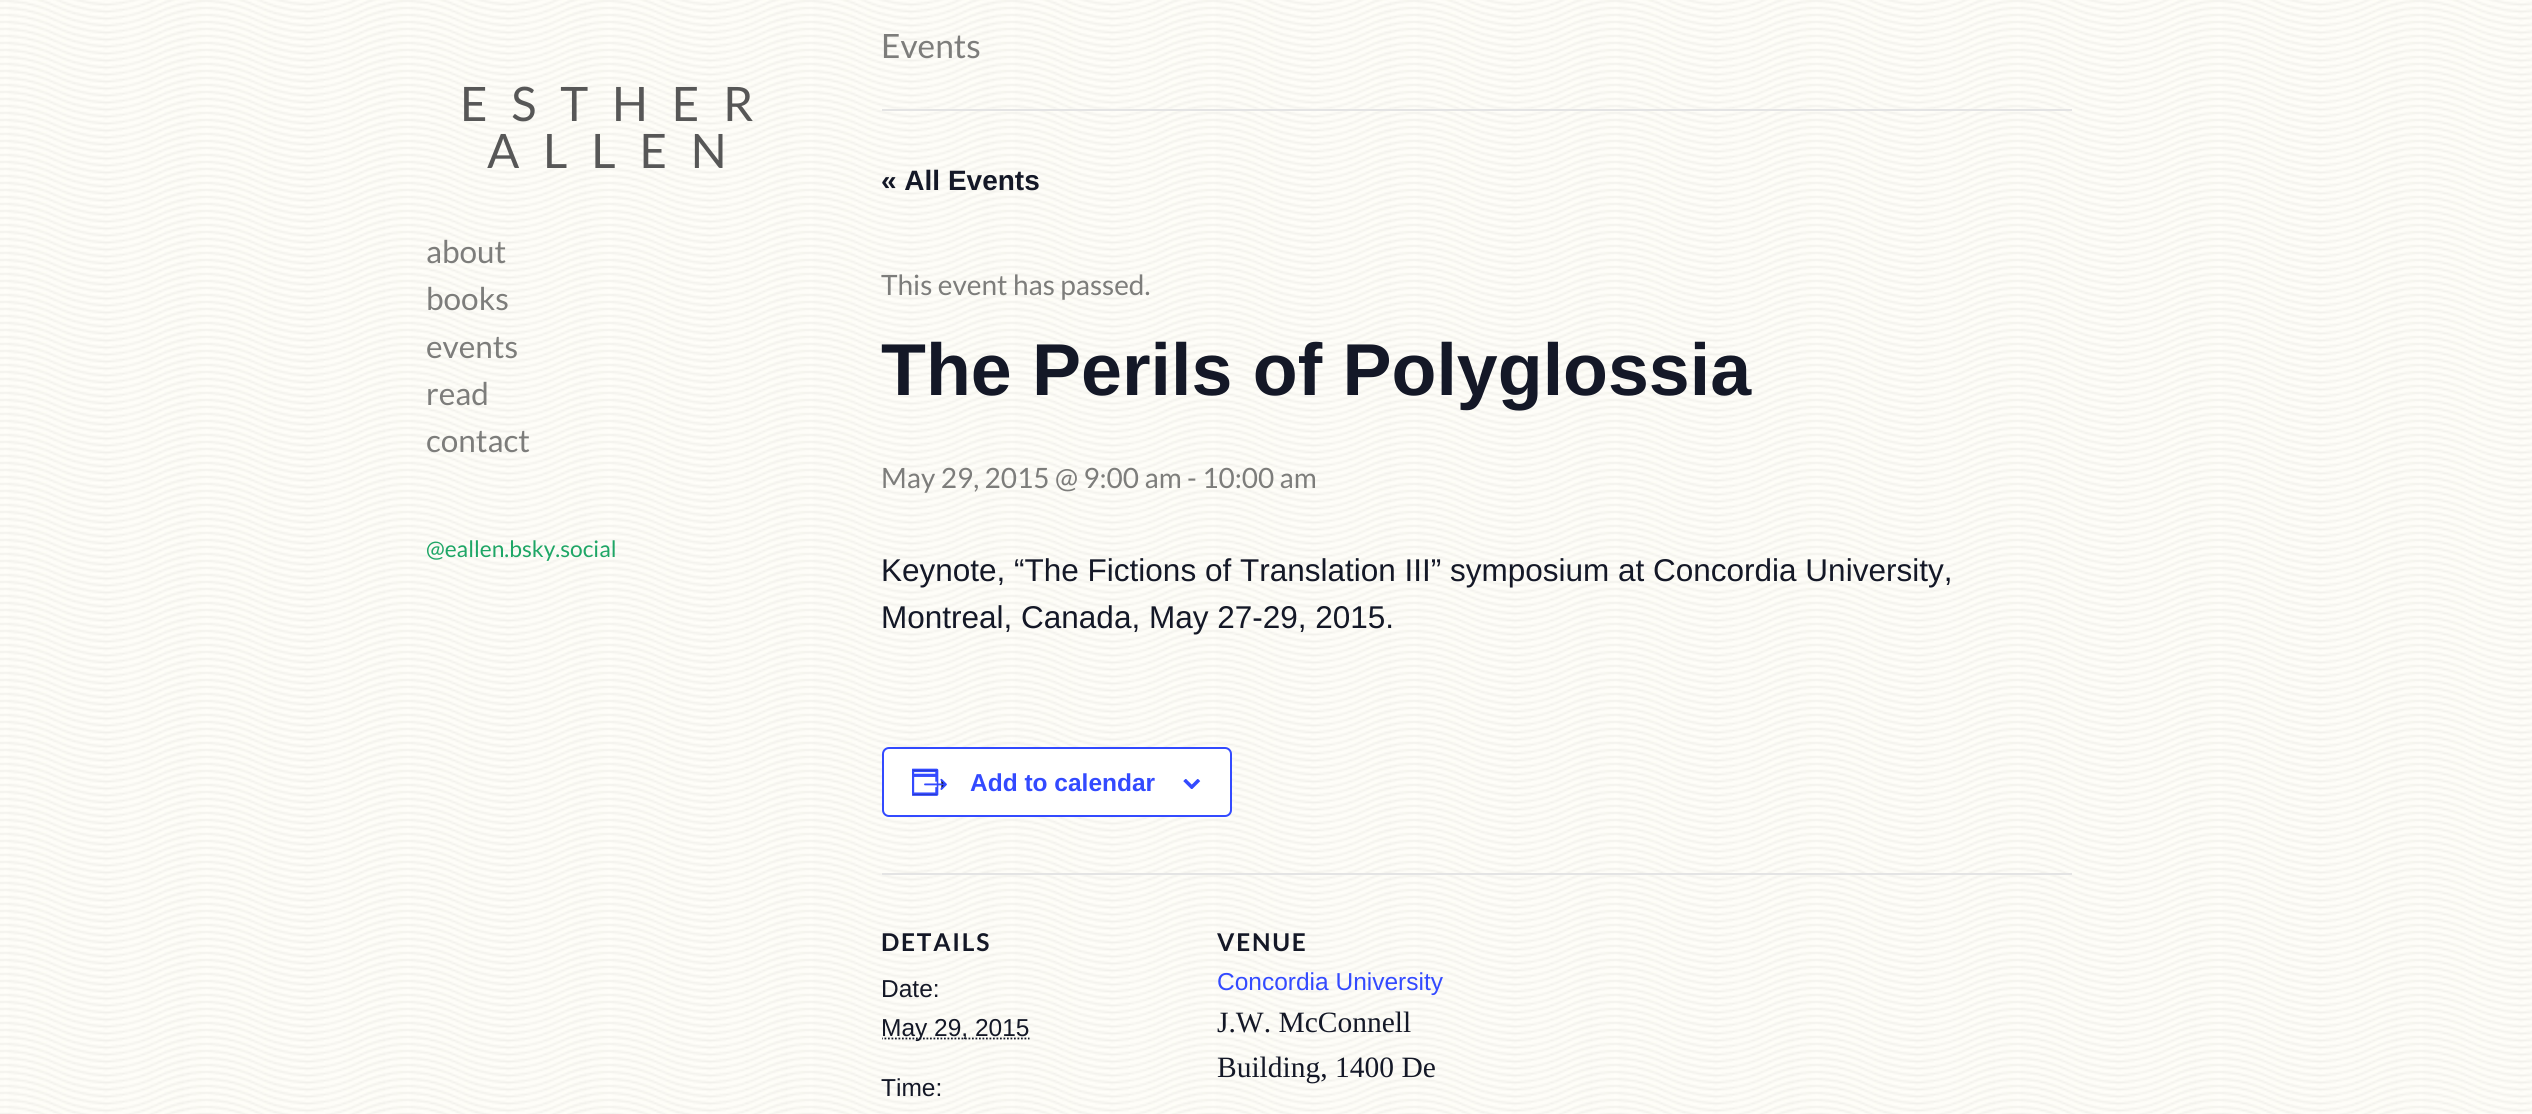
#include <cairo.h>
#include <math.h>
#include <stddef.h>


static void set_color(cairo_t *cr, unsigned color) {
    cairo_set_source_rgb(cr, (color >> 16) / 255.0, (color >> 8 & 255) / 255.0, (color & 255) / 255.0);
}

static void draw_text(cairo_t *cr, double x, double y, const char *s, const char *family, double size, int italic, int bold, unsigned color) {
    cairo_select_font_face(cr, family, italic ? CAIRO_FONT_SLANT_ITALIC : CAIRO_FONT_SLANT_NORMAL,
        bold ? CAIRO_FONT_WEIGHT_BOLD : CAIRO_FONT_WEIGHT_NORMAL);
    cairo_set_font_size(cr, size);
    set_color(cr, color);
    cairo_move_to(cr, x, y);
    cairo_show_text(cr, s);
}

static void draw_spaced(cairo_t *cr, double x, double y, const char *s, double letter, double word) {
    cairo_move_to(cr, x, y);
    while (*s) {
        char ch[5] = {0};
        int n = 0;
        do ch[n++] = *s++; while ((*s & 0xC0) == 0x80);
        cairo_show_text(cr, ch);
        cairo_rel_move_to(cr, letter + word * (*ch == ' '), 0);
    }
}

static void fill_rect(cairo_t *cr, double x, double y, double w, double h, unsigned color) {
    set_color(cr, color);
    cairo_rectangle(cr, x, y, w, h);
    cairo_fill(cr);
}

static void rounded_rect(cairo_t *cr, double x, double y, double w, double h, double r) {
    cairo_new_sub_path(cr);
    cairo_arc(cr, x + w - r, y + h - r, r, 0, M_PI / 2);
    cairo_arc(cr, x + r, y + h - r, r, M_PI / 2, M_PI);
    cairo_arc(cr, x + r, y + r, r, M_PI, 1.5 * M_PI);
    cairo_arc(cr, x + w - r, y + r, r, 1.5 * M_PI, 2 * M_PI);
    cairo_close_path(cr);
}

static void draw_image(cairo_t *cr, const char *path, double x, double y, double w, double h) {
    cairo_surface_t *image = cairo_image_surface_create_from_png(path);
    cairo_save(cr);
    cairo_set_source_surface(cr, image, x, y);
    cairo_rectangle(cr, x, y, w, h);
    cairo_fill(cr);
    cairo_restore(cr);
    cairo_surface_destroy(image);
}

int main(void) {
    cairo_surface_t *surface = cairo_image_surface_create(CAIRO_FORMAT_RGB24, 2532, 1114);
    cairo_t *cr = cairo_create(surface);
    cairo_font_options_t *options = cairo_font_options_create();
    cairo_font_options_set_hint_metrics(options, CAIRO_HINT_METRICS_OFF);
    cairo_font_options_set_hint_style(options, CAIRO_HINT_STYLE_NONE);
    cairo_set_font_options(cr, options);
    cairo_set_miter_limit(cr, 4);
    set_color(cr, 0xFFFFFF);
    cairo_paint(cr);
    draw_image(cr, "assets/img1.png", 0, 0, 2532, 1114);
    cairo_select_font_face(cr, "Lato", CAIRO_FONT_SLANT_NORMAL, CAIRO_FONT_WEIGHT_NORMAL);
    cairo_set_font_size(cr, 47.5);
    set_color(cr, 0x575757);
    draw_spaced(cr, 460, 121, "ESTHER", 23.75, 0);
    draw_spaced(cr, 487, 168, "ALLEN", 23.75, 0);
    draw_text(cr, 426, 263, "about", "Lato", 31.5, 0, 0, 0x7D7D7B);
    draw_text(cr, 426, 310, "books", "Lato", 31.5, 0, 0, 0x7D7D7B);
    draw_text(cr, 426, 358, "events", "Lato", 31.5, 0, 0, 0x7D7D7B);
    draw_text(cr, 426, 405, "read", "Lato", 31.5, 0, 0, 0x7D7D7B);
    draw_text(cr, 426, 452, "contact", "Lato", 31.5, 0, 0, 0x7D7D7B);
    draw_text(cr, 426, 557, "@eallen.bsky.social", "Lato", 22.75, 0, 0, 0x1EA666);
    fill_rect(cr, 882, 109, 1190, 2, 0xE4E4E4);
    draw_text(cr, 881, 58, "Events", "Lato", 33.5, 0, 0, 0x7D7D7B);
    draw_text(cr, 881, 190, "« All Events", "Liberation Sans", 28, 0, 1, 0x141827);
    draw_text(cr, 881, 295, "This event has passed.", "Lato", 28, 0, 0, 0x7D7D7B);
    draw_text(cr, 881, 395, "The Perils of Polyglossia", "Liberation Sans", 73.5, 0, 1, 0x141827);
    draw_text(cr, 881, 488, "May 29, 2015 @ 9:00 am - 10:00 am", "Lato", 28, 0, 0, 0x7D7D7B);
    draw_text(cr, 881, 581, "Keynote, “The Fictions of Translation III” symposium at Concordia University,", "Liberation Sans", 31.5, 0, 0, 0x141827);
    draw_text(cr, 881, 628, "Montreal, Canada, May 27-29, 2015.", "Liberation Sans", 31.5, 0, 0, 0x141827);
    set_color(cr, 0xFFFFFF);
    rounded_rect(cr, 883, 748, 348, 68, 6);
    cairo_fill_preserve(cr);
    set_color(cr, 0x334AFF);
    cairo_stroke(cr);
    draw_image(cr, "assets/img2.png", 912, 768, 35, 28);
    draw_text(cr, 970, 791, "Add to calendar", "Liberation Sans", 24.5, 0, 1, 0x334AFF);
    draw_image(cr, "assets/img3.png", 1183, 779, 18, 10);
    fill_rect(cr, 882, 873, 1190, 2, 0xE4E4E4);
    cairo_select_font_face(cr, "Lato", CAIRO_FONT_SLANT_NORMAL, CAIRO_FONT_WEIGHT_BOLD);
    set_color(cr, 0x141827);
    draw_spaced(cr, 881, 951, "DETAILS", 1.75, 0);
    draw_text(cr, 881, 997, "Date:", "Liberation Sans", 24.5, 0, 0, 0x141827);
    cairo_save(cr);
    cairo_rectangle(cr, 882, 548, 1190, 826);
    cairo_clip(cr);
    cairo_new_path(cr);
    cairo_move_to(cr, 881, 1038.5);
    cairo_line_to(cr, 1029.5, 1038.5);
    cairo_set_line_width(cr, 1.8);
    cairo_set_dash(cr, (double[]){1.75, 1.75}, 2, 0);
    cairo_stroke(cr);
    cairo_restore(cr);
    draw_text(cr, 881, 1036, "May 29, 2015", "Liberation Sans", 24.5, 0, 0, 0x141827);
    draw_text(cr, 881, 1096, "Time:", "Liberation Sans", 24.5, 0, 0, 0x141827);
    cairo_select_font_face(cr, "Lato", CAIRO_FONT_SLANT_NORMAL, CAIRO_FONT_WEIGHT_BOLD);
    draw_spaced(cr, 1217, 951, "VENUE", 1.75, 0);
    draw_text(cr, 1217, 990, "Concordia University", "Liberation Sans", 24.5, 0, 0, 0x334AFF);
    draw_text(cr, 1217, 1032, "J.W. McConnell", "Liberation Serif", 29.5, 0, 0, 0x141827);
    draw_text(cr, 1217, 1077, "Building, 1400 De", "Liberation Serif", 29.5, 0, 0, 0x141827);
    cairo_surface_write_to_png(surface, "output.png");
    cairo_font_options_destroy(options);
    cairo_destroy(cr);
    cairo_surface_destroy(surface);
    return 0;
}
